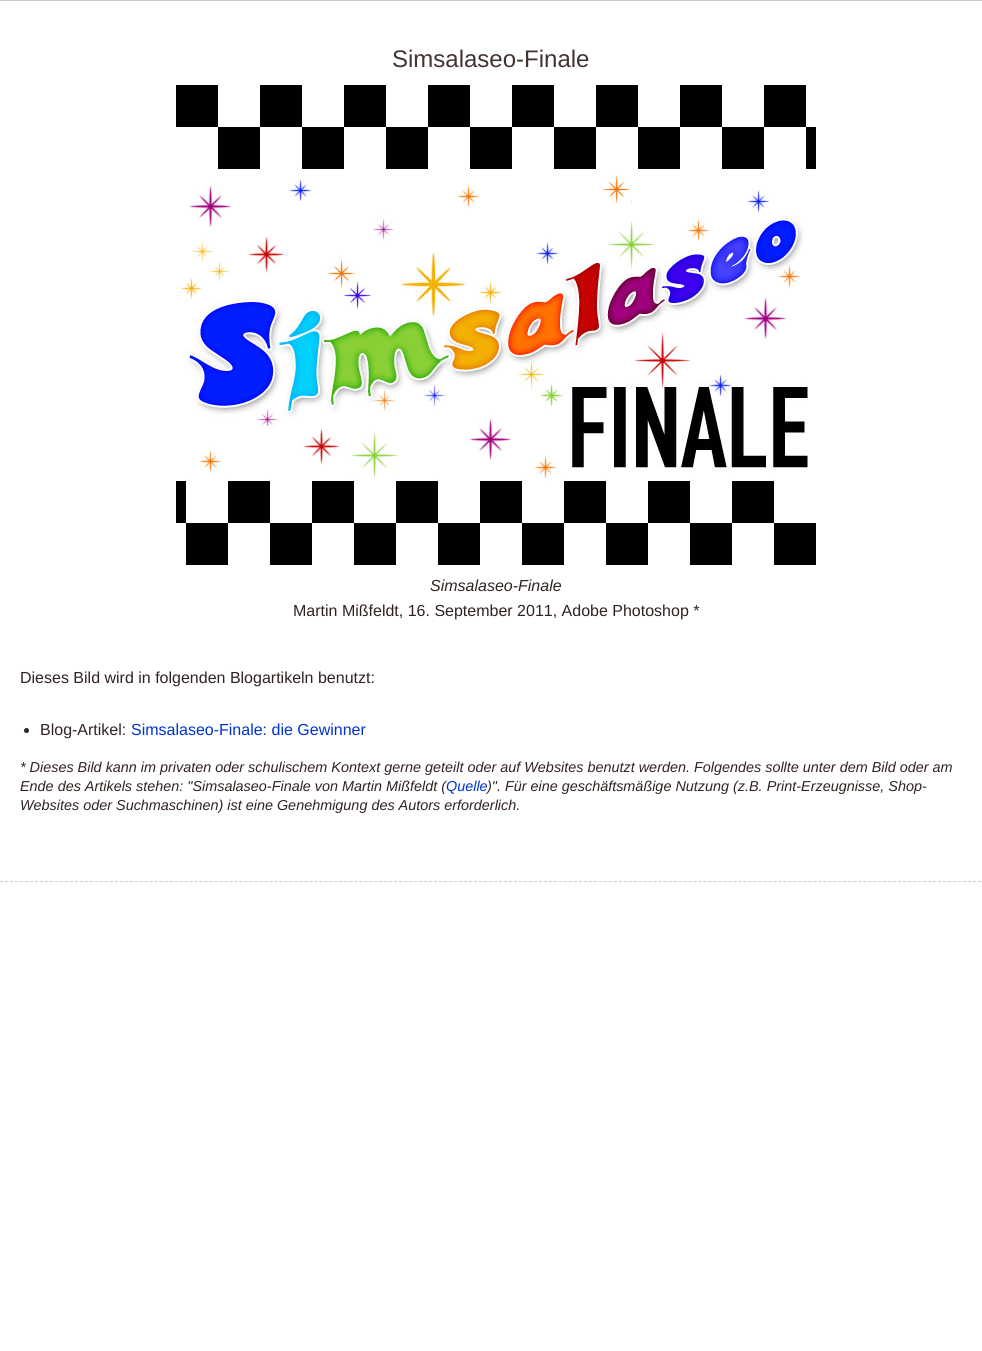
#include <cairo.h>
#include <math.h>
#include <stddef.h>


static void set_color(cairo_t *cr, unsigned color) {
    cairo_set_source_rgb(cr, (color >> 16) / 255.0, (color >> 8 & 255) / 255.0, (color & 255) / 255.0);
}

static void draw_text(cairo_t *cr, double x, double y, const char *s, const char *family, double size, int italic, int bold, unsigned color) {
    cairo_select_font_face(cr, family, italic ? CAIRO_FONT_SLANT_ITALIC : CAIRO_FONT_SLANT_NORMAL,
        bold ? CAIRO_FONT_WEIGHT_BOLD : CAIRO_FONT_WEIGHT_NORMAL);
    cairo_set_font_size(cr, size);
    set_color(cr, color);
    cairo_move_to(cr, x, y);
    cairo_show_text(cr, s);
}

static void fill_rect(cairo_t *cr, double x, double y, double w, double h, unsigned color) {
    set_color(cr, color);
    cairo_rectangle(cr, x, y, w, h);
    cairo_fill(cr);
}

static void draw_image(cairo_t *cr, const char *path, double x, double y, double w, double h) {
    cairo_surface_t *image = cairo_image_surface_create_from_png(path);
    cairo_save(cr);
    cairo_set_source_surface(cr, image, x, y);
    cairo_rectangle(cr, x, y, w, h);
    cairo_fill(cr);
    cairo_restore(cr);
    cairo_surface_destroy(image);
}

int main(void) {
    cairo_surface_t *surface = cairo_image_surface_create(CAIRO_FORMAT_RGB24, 982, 1351);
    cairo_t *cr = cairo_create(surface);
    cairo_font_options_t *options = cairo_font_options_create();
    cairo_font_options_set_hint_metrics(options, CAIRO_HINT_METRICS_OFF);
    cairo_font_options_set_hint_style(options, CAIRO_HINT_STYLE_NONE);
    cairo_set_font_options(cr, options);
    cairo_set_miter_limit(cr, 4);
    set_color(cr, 0xFFFFFF);
    cairo_paint(cr);
    fill_rect(cr, 0, 0, 982, 1, 0xCCCCCC);
    draw_text(cr, 392, 67, "Simsalaseo-Finale", "Liberation Sans", 24, 0, 0, 0x443333);
    draw_image(cr, "assets/img1.png", 176, 85, 640, 480);
    draw_text(cr, 430, 591, "Simsalaseo-Finale", "Liberation Sans", 16, 1, 0, 0x332222);
    draw_text(cr, 293, 616, "Martin Mißfeldt, 16. September 2011, Adobe Photoshop *", "Liberation Sans", 16, 0, 0, 0x332222);
    draw_text(cr, 20, 683, "Dieses Bild wird in folgenden Blogartikeln benutzt:", "Liberation Sans", 16, 0, 0, 0x332222);
    cairo_new_path(cr);
    cairo_arc(cr, 26.5, 730.5, 2.5, 0, 2 * M_PI);
    cairo_fill(cr);
    draw_text(cr, 40, 735, "Blog-Artikel:", "Liberation Sans", 16, 0, 0, 0x332222);
    draw_text(cr, 131, 735, "Simsalaseo-Finale: die Gewinner", "Liberation Sans", 16, 0, 0, 0x0033CC);
    draw_text(cr, 20, 772, "* Dieses Bild kann im privaten oder schulischem Kontext gerne geteilt oder auf Websites benutzt werden. Folgendes sollte unter dem Bild oder am", "Liberation Sans", 14.4, 1, 0, 0x332222);
    draw_text(cr, 20, 791, "Ende des Artikels stehen: \"Simsalaseo-Finale von Martin Mißfeldt (", "Liberation Sans", 14.4, 1, 0, 0x332222);
    draw_text(cr, 446, 791, "Quelle", "Liberation Sans", 14.4, 1, 0, 0x0033CC);
    draw_text(cr, 487, 791, ")\". Für eine geschäftsmäßige Nutzung (z.B. Print-Erzeugnisse, Shop-", "Liberation Sans", 14.4, 1, 0, 0x332222);
    draw_text(cr, 20, 810, "Websites oder Suchmaschinen) ist eine Genehmigung des Autors erforderlich.", "Liberation Sans", 14.4, 1, 0, 0x332222);
    cairo_new_path(cr);
    cairo_move_to(cr, 0, 881.5);
    cairo_line_to(cr, 982, 881.5);
    set_color(cr, 0xCCCCCC);
    cairo_set_line_width(cr, 1);
    cairo_set_dash(cr, (double[]){3, 1.99}, 2, 0);
    cairo_stroke(cr);
    cairo_surface_write_to_png(surface, "output.png");
    cairo_font_options_destroy(options);
    cairo_destroy(cr);
    cairo_surface_destroy(surface);
    return 0;
}
